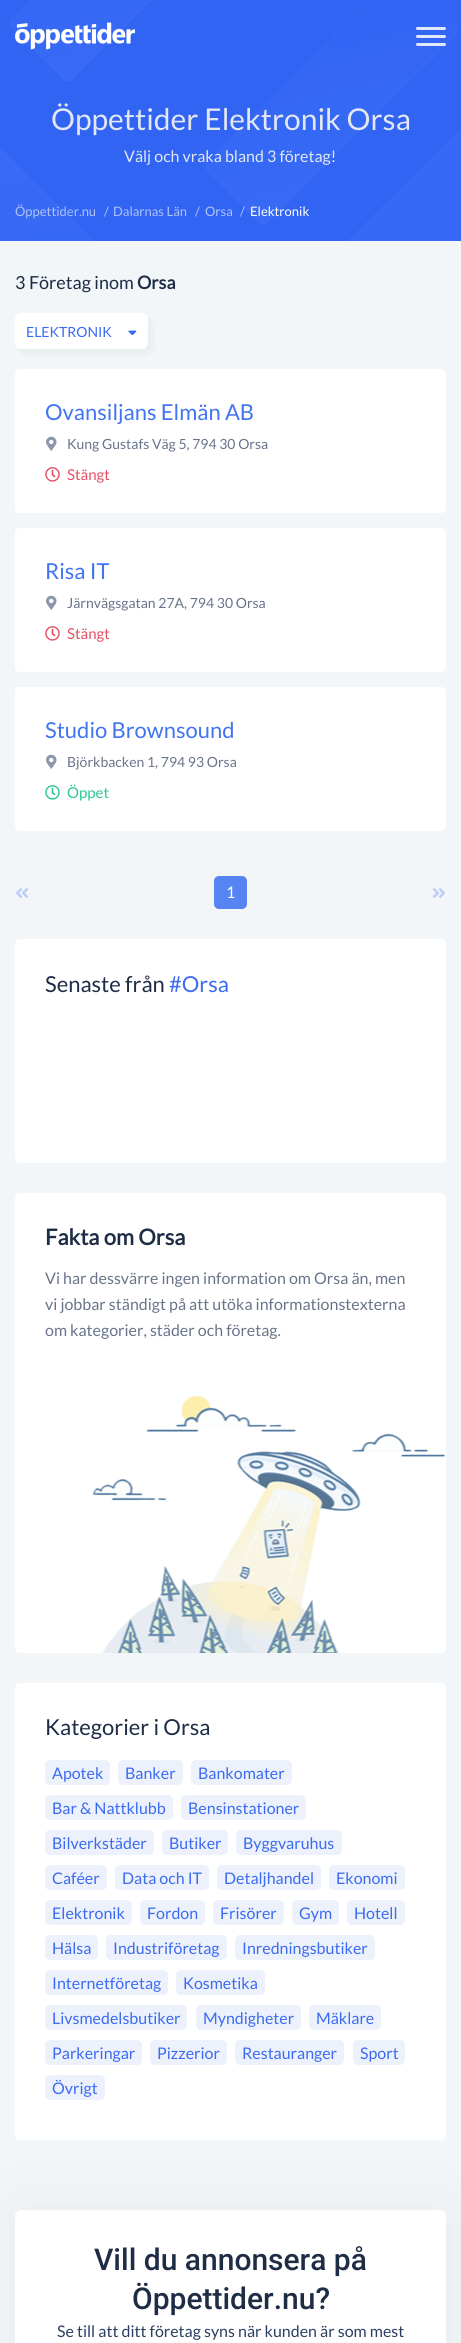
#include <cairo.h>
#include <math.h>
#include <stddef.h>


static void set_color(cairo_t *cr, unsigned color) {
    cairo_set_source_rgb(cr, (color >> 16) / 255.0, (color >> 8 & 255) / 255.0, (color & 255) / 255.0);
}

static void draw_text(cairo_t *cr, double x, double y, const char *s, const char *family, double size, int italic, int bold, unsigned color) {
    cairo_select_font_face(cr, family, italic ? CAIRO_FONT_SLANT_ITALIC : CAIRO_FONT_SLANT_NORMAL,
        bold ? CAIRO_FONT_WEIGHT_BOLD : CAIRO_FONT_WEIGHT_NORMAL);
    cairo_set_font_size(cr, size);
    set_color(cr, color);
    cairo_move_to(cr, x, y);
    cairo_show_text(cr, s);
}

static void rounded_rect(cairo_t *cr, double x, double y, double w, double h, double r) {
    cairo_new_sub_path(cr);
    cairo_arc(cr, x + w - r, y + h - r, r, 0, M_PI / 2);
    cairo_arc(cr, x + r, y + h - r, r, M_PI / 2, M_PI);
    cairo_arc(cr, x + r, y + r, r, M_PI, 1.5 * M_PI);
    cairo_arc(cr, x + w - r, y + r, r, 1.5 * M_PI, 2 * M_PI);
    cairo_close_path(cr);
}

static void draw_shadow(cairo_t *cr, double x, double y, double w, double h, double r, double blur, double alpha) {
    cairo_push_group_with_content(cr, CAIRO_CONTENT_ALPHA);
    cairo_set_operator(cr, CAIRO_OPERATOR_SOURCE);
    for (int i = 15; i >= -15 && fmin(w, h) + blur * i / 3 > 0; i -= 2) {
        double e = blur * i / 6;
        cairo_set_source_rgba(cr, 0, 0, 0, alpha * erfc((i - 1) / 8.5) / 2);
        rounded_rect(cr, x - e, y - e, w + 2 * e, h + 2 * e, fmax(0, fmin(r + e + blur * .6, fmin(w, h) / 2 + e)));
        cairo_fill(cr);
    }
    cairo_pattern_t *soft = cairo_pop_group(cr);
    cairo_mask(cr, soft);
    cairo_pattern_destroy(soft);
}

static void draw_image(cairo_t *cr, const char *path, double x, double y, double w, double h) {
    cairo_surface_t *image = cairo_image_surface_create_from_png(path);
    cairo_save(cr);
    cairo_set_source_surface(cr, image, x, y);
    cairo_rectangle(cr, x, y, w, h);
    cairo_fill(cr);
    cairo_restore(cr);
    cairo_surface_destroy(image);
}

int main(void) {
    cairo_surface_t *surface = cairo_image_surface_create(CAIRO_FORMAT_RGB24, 461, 2343);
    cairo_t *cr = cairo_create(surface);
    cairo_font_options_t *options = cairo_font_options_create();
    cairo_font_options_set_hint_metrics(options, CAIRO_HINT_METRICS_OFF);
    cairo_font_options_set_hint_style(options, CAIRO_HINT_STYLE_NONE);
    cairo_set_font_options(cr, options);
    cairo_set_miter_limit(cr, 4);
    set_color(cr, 0xF2F6F8);
    cairo_paint(cr);
    draw_image(cr, "assets/img2.png", 0, 0, 461, 241);
    draw_image(cr, "assets/img1.png", 15, 22, 120, 28);
    cairo_set_source_rgba(cr, 1, 1, 1, 0.85);
    rounded_rect(cr, 416, 35, 30, 3, 1.5);
    cairo_fill(cr);
    set_color(cr, 0xE0E8FD);
    rounded_rect(cr, 416, 27, 30, 3, 1.5);
    cairo_fill(cr);
    cairo_set_source_rgba(cr, 1, 1, 1, 0.85);
    rounded_rect(cr, 416, 43, 30, 3, 1.5);
    cairo_fill(cr);
    draw_text(cr, 51, 130, "Öppettider Elektronik Orsa", "Lato", 30, 0, 0, 0xE2E7F3);
    draw_text(cr, 124, 162, "Välj och vraka bland 3 företag!", "Lato", 16, 0, 0, 0xE2E7F3);
    draw_text(cr, 15, 216, "Öppettider.nu", "Lato", 13, 0, 0, 0xAEC2FB);
    draw_text(cr, 104, 216, "/", "Lato", 13, 0, 0, 0xAEC2FB);
    draw_text(cr, 113, 216, "Dalarnas Län", "Lato", 13, 0, 0, 0xAEC2FB);
    draw_text(cr, 195, 216, "/", "Lato", 13, 0, 0, 0xAEC2FB);
    draw_text(cr, 205, 216, "Orsa", "Lato", 13, 0, 0, 0xAEC2FB);
    draw_text(cr, 240, 216, "/", "Lato", 13, 0, 0, 0xAEC2FB);
    draw_text(cr, 250, 216, "Elektronik", "Lato", 13, 0, 0, 0xFFFFFF);
    draw_text(cr, 15, 289, "3 Företag inom", "Lato", 18, 0, 0, 0x1E2D45);
    draw_text(cr, 137, 289, "Orsa", "Lato", 18, 0, 1, 0x1E2D45);
    set_color(cr, 0x82888E);
    draw_shadow(cr, 20, 318, 133, 36, 6, 3, 0.09);
    set_color(cr, 0xFFFFFF);
    rounded_rect(cr, 15, 313, 133, 36, 6);
    cairo_fill(cr);
    draw_text(cr, 26, 337, "ELEKTRONIK", "Lato", 14, 0, 0, 0x3A6BF2);
    draw_image(cr, "assets/img3.png", 128, 330, 9, 6);
    set_color(cr, 0xFFFFFF);
    rounded_rect(cr, 15, 369, 431, 144, 5);
    cairo_fill(cr);
    draw_text(cr, 45, 420, "Ovansiljans Elmän AB", "Lato", 22, 0, 0, 0x4074F2);
    draw_image(cr, "assets/img4.png", 46, 436, 11, 15);
    draw_text(cr, 67, 449, "Kung Gustafs Väg 5, 794 30 Orsa", "Lato", 14, 0, 0, 0x69748A);
    draw_image(cr, "assets/img5.png", 45, 467, 15, 15);
    draw_text(cr, 67, 480, "Stängt", "Lato", 15, 0, 0, 0xE44E63);
    set_color(cr, 0xFFFFFF);
    rounded_rect(cr, 15, 528, 431, 144, 5);
    cairo_fill(cr);
    draw_text(cr, 45, 579, "Risa IT", "Lato", 22, 0, 0, 0x4074F2);
    draw_image(cr, "assets/img4.png", 46, 595, 11, 15);
    draw_text(cr, 67, 608, "Järnvägsgatan 27A, 794 30 Orsa", "Lato", 14, 0, 0, 0x69748A);
    draw_image(cr, "assets/img6.png", 45, 626, 15, 15);
    draw_text(cr, 67, 639, "Stängt", "Lato", 15, 0, 0, 0xE44E63);
    set_color(cr, 0xFFFFFF);
    rounded_rect(cr, 15, 687, 431, 144, 5);
    cairo_fill(cr);
    draw_text(cr, 45, 738, "Studio Brownsound", "Lato", 22, 0, 0, 0x4074F2);
    draw_image(cr, "assets/img7.png", 46, 754, 11, 15);
    draw_text(cr, 67, 767, "Björkbacken 1, 794 93 Orsa", "Lato", 14, 0, 0, 0x69748A);
    draw_image(cr, "assets/img8.png", 45, 785, 15, 15);
    draw_text(cr, 67, 798, "Öppet", "Lato", 15, 0, 0, 0x2BC695);
    draw_image(cr, "assets/img9.png", 16, 888, 13, 10);
    set_color(cr, 0x5784F3);
    rounded_rect(cr, 214, 876, 33, 33, 5);
    cairo_fill(cr);
    draw_text(cr, 226, 898, "1", "Lato", 16, 0, 0, 0xFFFFFF);
    draw_image(cr, "assets/img10.png", 432, 888, 13, 10);
    rounded_rect(cr, 15, 939, 431, 224, 5);
    cairo_fill(cr);
    draw_text(cr, 45, 992, "Senaste från", "Lato", 22, 0, 0, 0x1E2D45);
    draw_text(cr, 169, 992, "#Orsa", "Lato", 22, 0, 0, 0x3A6BF2);
    set_color(cr, 0xFFFFFF);
    rounded_rect(cr, 15, 1193, 431, 460, 5);
    cairo_fill(cr);
    draw_image(cr, "assets/img11.png", 92, 1395, 354, 258);
    draw_text(cr, 45, 1245, "Fakta om Orsa", "Lato", 22, 0, 1, 0x1E2D45);
    draw_text(cr, 45, 1284, "Vi har dessvärre ingen information om Orsa än, men", "Lato", 16, 0, 0, 0x69748A);
    draw_text(cr, 45, 1310, "vi jobbar ständigt på att utöka informationstexterna", "Lato", 16, 0, 0, 0x69748A);
    draw_text(cr, 45, 1336, "om kategorier, städer och företag.", "Lato", 16, 0, 0, 0x69748A);
    set_color(cr, 0xFFFFFF);
    rounded_rect(cr, 15, 1683, 431, 457, 5);
    cairo_fill(cr);
    draw_text(cr, 45, 1735, "Kategorier i Orsa", "Lato", 22, 0, 0, 0x1E2D45);
    set_color(cr, 0xEDF1FB);
    rounded_rect(cr, 45, 1760, 65, 25, 5);
    cairo_fill(cr);
    draw_text(cr, 52, 1779, "Apotek", "Lato", 16, 0, 0, 0x3A6BF2);
    set_color(cr, 0xEDF1FB);
    rounded_rect(cr, 118, 1760, 65, 25, 5);
    cairo_fill(cr);
    draw_text(cr, 125, 1779, "Banker", "Lato", 16, 0, 0, 0x3A6BF2);
    set_color(cr, 0xEDF1FB);
    rounded_rect(cr, 191, 1760, 101, 25, 5);
    cairo_fill(cr);
    draw_text(cr, 198, 1779, "Bankomater", "Lato", 16, 0, 0, 0x3A6BF2);
    set_color(cr, 0xEDF1FB);
    rounded_rect(cr, 45, 1795, 128, 25, 5);
    cairo_fill(cr);
    draw_text(cr, 52, 1814, "Bar & Nattklubb", "Lato", 16, 0, 0, 0x3A6BF2);
    set_color(cr, 0xEDF1FB);
    rounded_rect(cr, 181, 1795, 125, 25, 5);
    cairo_fill(cr);
    draw_text(cr, 188, 1814, "Bensinstationer", "Lato", 16, 0, 0, 0x3A6BF2);
    set_color(cr, 0xEDF1FB);
    rounded_rect(cr, 45, 1830, 109, 25, 5);
    cairo_fill(cr);
    draw_text(cr, 52, 1849, "Bilverkstäder", "Lato", 16, 0, 0, 0x3A6BF2);
    set_color(cr, 0xEDF1FB);
    rounded_rect(cr, 162, 1830, 66, 25, 5);
    cairo_fill(cr);
    draw_text(cr, 169, 1849, "Butiker", "Lato", 16, 0, 0, 0x3A6BF2);
    set_color(cr, 0xEDF1FB);
    rounded_rect(cr, 236, 1830, 106, 25, 5);
    cairo_fill(cr);
    draw_text(cr, 243, 1849, "Byggvaruhus", "Lato", 16, 0, 0, 0x3A6BF2);
    set_color(cr, 0xEDF1FB);
    rounded_rect(cr, 45, 1865, 62, 25, 5);
    cairo_fill(cr);
    draw_text(cr, 52, 1884, "Caféer", "Lato", 16, 0, 0, 0x3A6BF2);
    set_color(cr, 0xEDF1FB);
    rounded_rect(cr, 115, 1865, 94, 25, 5);
    cairo_fill(cr);
    draw_text(cr, 122, 1884, "Data och IT", "Lato", 16, 0, 0, 0x3A6BF2);
    set_color(cr, 0xEDF1FB);
    rounded_rect(cr, 217, 1865, 104, 25, 5);
    cairo_fill(cr);
    draw_text(cr, 224, 1884, "Detaljhandel", "Lato", 16, 0, 0, 0x3A6BF2);
    set_color(cr, 0xEDF1FB);
    rounded_rect(cr, 329, 1865, 76, 25, 5);
    cairo_fill(cr);
    draw_text(cr, 336, 1884, "Ekonomi", "Lato", 16, 0, 0, 0x3A6BF2);
    set_color(cr, 0xEDF1FB);
    rounded_rect(cr, 45, 1900, 87, 25, 5);
    cairo_fill(cr);
    draw_text(cr, 52, 1919, "Elektronik", "Lato", 16, 0, 0, 0x3A6BF2);
    set_color(cr, 0xEDF1FB);
    rounded_rect(cr, 140, 1900, 65, 25, 5);
    cairo_fill(cr);
    draw_text(cr, 147, 1919, "Fordon", "Lato", 16, 0, 0, 0x3A6BF2);
    set_color(cr, 0xEDF1FB);
    rounded_rect(cr, 213, 1900, 71, 25, 5);
    cairo_fill(cr);
    draw_text(cr, 220, 1919, "Frisörer", "Lato", 16, 0, 0, 0x3A6BF2);
    set_color(cr, 0xEDF1FB);
    rounded_rect(cr, 292, 1900, 47, 25, 5);
    cairo_fill(cr);
    draw_text(cr, 299, 1919, "Gym", "Lato", 16, 0, 0, 0x3A6BF2);
    set_color(cr, 0xEDF1FB);
    rounded_rect(cr, 347, 1900, 58, 25, 5);
    cairo_fill(cr);
    draw_text(cr, 354, 1919, "Hotell", "Lato", 16, 0, 0, 0x3A6BF2);
    set_color(cr, 0xEDF1FB);
    rounded_rect(cr, 45, 1935, 53, 25, 5);
    cairo_fill(cr);
    draw_text(cr, 52, 1954, "Hälsa", "Lato", 16, 0, 0, 0x3A6BF2);
    set_color(cr, 0xEDF1FB);
    rounded_rect(cr, 106, 1935, 121, 25, 5);
    cairo_fill(cr);
    draw_text(cr, 113, 1954, "Industriföretag", "Lato", 16, 0, 0, 0x3A6BF2);
    set_color(cr, 0xEDF1FB);
    rounded_rect(cr, 235, 1935, 140, 25, 5);
    cairo_fill(cr);
    draw_text(cr, 242, 1954, "Inredningsbutiker", "Lato", 16, 0, 0, 0x3A6BF2);
    set_color(cr, 0xEDF1FB);
    rounded_rect(cr, 45, 1970, 123, 25, 5);
    cairo_fill(cr);
    draw_text(cr, 52, 1989, "Internetföretag", "Lato", 16, 0, 0, 0x3A6BF2);
    set_color(cr, 0xEDF1FB);
    rounded_rect(cr, 176, 1970, 89, 25, 5);
    cairo_fill(cr);
    draw_text(cr, 183, 1989, "Kosmetika", "Lato", 16, 0, 0, 0x3A6BF2);
    set_color(cr, 0xEDF1FB);
    rounded_rect(cr, 45, 2005, 142, 25, 5);
    cairo_fill(cr);
    draw_text(cr, 52, 2024, "Livsmedelsbutiker", "Lato", 16, 0, 0, 0x3A6BF2);
    set_color(cr, 0xEDF1FB);
    rounded_rect(cr, 196, 2005, 105, 25, 5);
    cairo_fill(cr);
    draw_text(cr, 203, 2024, "Myndigheter", "Lato", 16, 0, 0, 0x3A6BF2);
    set_color(cr, 0xEDF1FB);
    rounded_rect(cr, 309, 2005, 72, 25, 5);
    cairo_fill(cr);
    draw_text(cr, 316, 2024, "Mäklare", "Lato", 16, 0, 0, 0x3A6BF2);
    set_color(cr, 0xEDF1FB);
    rounded_rect(cr, 45, 2040, 97, 25, 5);
    cairo_fill(cr);
    draw_text(cr, 52, 2059, "Parkeringar", "Lato", 16, 0, 0, 0x3A6BF2);
    set_color(cr, 0xEDF1FB);
    rounded_rect(cr, 150, 2040, 77, 25, 5);
    cairo_fill(cr);
    draw_text(cr, 157, 2059, "Pizzerior", "Lato", 16, 0, 0, 0x3A6BF2);
    set_color(cr, 0xEDF1FB);
    rounded_rect(cr, 235, 2040, 109, 25, 5);
    cairo_fill(cr);
    draw_text(cr, 242, 2059, "Restauranger", "Lato", 16, 0, 0, 0x3A6BF2);
    set_color(cr, 0xEDF1FB);
    rounded_rect(cr, 353, 2040, 52, 25, 5);
    cairo_fill(cr);
    draw_text(cr, 360, 2059, "Sport", "Lato", 16, 0, 0, 0x3A6BF2);
    set_color(cr, 0xEDF1FB);
    rounded_rect(cr, 45, 2075, 60, 25, 5);
    cairo_fill(cr);
    draw_text(cr, 52, 2094, "Övrigt", "Lato", 16, 0, 0, 0x3A6BF2);
    set_color(cr, 0x82888E);
    draw_shadow(cr, 15, 2210, 431, 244, 6, 35, 0.1);
    set_color(cr, 0xFFFFFF);
    rounded_rect(cr, 15, 2210, 431, 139, 6);
    cairo_fill(cr);
    draw_text(cr, 94, 2270, "Vill du annonsera på", "Roboto Medium", 30, 0, 0, 0x1E2D45);
    draw_text(cr, 132, 2309, "Öppettider.nu?", "Roboto Medium", 30, 0, 0, 0x1E2D45);
    draw_text(cr, 57, 2337, "Se till att ditt företag syns när kunden är som mest", "Lato", 16, 0, 0, 0x2A3F62);
    cairo_surface_write_to_png(surface, "output.png");
    cairo_font_options_destroy(options);
    cairo_destroy(cr);
    cairo_surface_destroy(surface);
    return 0;
}
